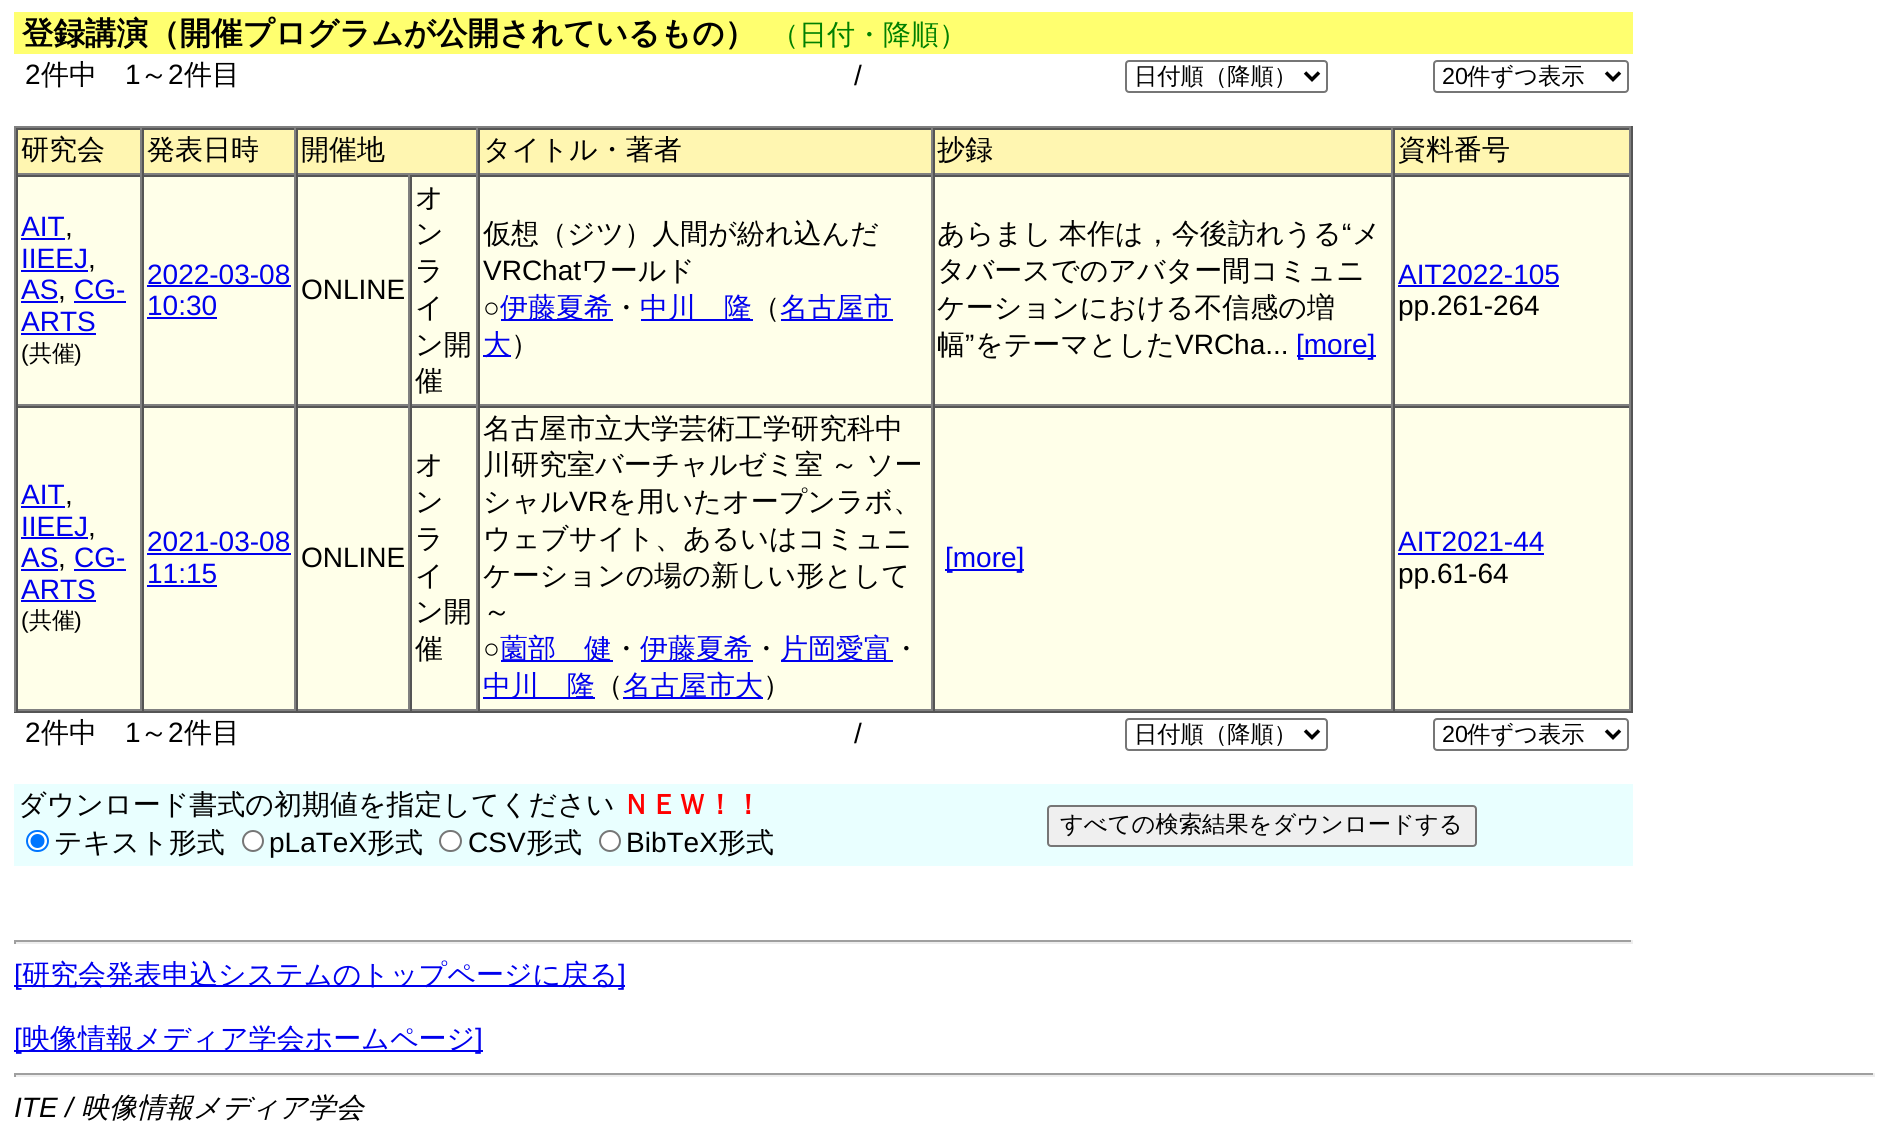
#include <cairo.h>
#include <math.h>
#include <stddef.h>


static void set_color(cairo_t *cr, unsigned color) {
    cairo_set_source_rgb(cr, (color >> 16) / 255.0, (color >> 8 & 255) / 255.0, (color & 255) / 255.0);
}

static void draw_text(cairo_t *cr, double x, double y, const char *s, const char *family, double size, int italic, int bold, unsigned color) {
    cairo_select_font_face(cr, family, italic ? CAIRO_FONT_SLANT_ITALIC : CAIRO_FONT_SLANT_NORMAL,
        bold ? CAIRO_FONT_WEIGHT_BOLD : CAIRO_FONT_WEIGHT_NORMAL);
    cairo_set_font_size(cr, size);
    set_color(cr, color);
    cairo_move_to(cr, x, y);
    cairo_show_text(cr, s);
}

static void draw_spaced(cairo_t *cr, double x, double y, const char *s, double letter, double word) {
    cairo_move_to(cr, x, y);
    while (*s) {
        char ch[5] = {0};
        int n = 0;
        do ch[n++] = *s++; while ((*s & 0xC0) == 0x80);
        cairo_show_text(cr, ch);
        cairo_rel_move_to(cr, letter + word * (*ch == ' '), 0);
    }
}

static void fill_rect(cairo_t *cr, double x, double y, double w, double h, unsigned color) {
    set_color(cr, color);
    cairo_rectangle(cr, x, y, w, h);
    cairo_fill(cr);
}

static void rounded_rect(cairo_t *cr, double x, double y, double w, double h, double r) {
    cairo_new_sub_path(cr);
    cairo_arc(cr, x + w - r, y + h - r, r, 0, M_PI / 2);
    cairo_arc(cr, x + r, y + h - r, r, M_PI / 2, M_PI);
    cairo_arc(cr, x + r, y + r, r, M_PI, 1.5 * M_PI);
    cairo_arc(cr, x + w - r, y + r, r, 1.5 * M_PI, 2 * M_PI);
    cairo_close_path(cr);
}

int main(void) {
    cairo_surface_t *surface = cairo_image_surface_create(CAIRO_FORMAT_RGB24, 1887, 1141);
    cairo_t *cr = cairo_create(surface);
    cairo_font_options_t *options = cairo_font_options_create();
    cairo_font_options_set_hint_metrics(options, CAIRO_HINT_METRICS_OFF);
    cairo_font_options_set_hint_style(options, CAIRO_HINT_STYLE_NONE);
    cairo_set_font_options(cr, options);
    cairo_set_miter_limit(cr, 4);
    set_color(cr, 0xFFFFFF);
    cairo_paint(cr);
    fill_rect(cr, 14, 12, 1619, 42, 0xFFFF6F);
    draw_text(cr, 22, 44, "登録講演（開催プログラムが公開されているもの）", "WenQuanYi Zen Hei", 31.5, 0, 1, 0x000000);
    draw_text(cr, 771, 44, "（日付・降順）", "WenQuanYi Zen Hei Medium", 28, 0, 0, 0x008000);
    draw_text(cr, 25, 84, "2", "Liberation Sans", 28, 0, 0, 0x000000);
    draw_text(cr, 41, 84, "件中", "WenQuanYi Zen Hei Medium", 28, 0, 0, 0x000000);
    draw_text(cr, 125, 84, "1", "Liberation Sans", 28, 0, 0, 0x000000);
    draw_text(cr, 140, 84, "～", "WenQuanYi Zen Hei Medium", 28, 0, 0, 0x000000);
    draw_text(cr, 168, 84, "2", "Liberation Sans", 28, 0, 0, 0x000000);
    draw_text(cr, 184, 84, "件目", "WenQuanYi Zen Hei Medium", 28, 0, 0, 0x000000);
    draw_text(cr, 854, 85, "/", "Liberation Sans", 28, 0, 0, 0x000000);
    rounded_rect(cr, 1126, 61, 201, 31, 3);
    set_color(cr, 0x767676);
    cairo_stroke(cr);
    cairo_new_path(cr);
    cairo_move_to(cr, 1305, 72.5);
    cairo_line_to(cr, 1312, 79.5);
    cairo_line_to(cr, 1319, 72.5);
    set_color(cr, 0x000000);
    cairo_set_line_width(cr, 3.5);
    cairo_stroke(cr);
    draw_text(cr, 1134, 84, "日付順（降順）", "WenQuanYi Zen Hei Medium", 23.3, 0, 0, 0x000000);
    rounded_rect(cr, 1434, 61, 194, 31, 3);
    set_color(cr, 0x767676);
    cairo_set_line_width(cr, 2);
    cairo_stroke(cr);
    cairo_new_path(cr);
    cairo_move_to(cr, 1606, 72.5);
    cairo_line_to(cr, 1613, 79.5);
    cairo_line_to(cr, 1620, 72.5);
    set_color(cr, 0x000000);
    cairo_set_line_width(cr, 3.5);
    cairo_stroke(cr);
    draw_text(cr, 1442, 84, "20", "Liberation Sans", 23.3, 0, 0, 0x000000);
    draw_text(cr, 1467, 84, "件ずつ表示", "WenQuanYi Zen Hei Medium", 23.3, 0, 0, 0x000000);
    fill_rect(cr, 14, 126, 1619, 2, 0x808080);
    fill_rect(cr, 1631, 126, 2, 586, 0x555555);
    fill_rect(cr, 14, 711, 1619, 2, 0x555555);
    fill_rect(cr, 14, 126, 2, 586, 0x808080);
    fill_rect(cr, 18, 130, 122, 43, 0xFFF6B1);
    fill_rect(cr, 16, 128, 1615, 2, 0x555555);
    fill_rect(cr, 140, 128, 2, 47, 0x808080);
    fill_rect(cr, 16, 173, 126, 2, 0x808080);
    fill_rect(cr, 16, 128, 2, 47, 0x555555);
    draw_text(cr, 21, 159, "研究会", "WenQuanYi Zen Hei Medium", 28, 0, 0, 0x000000);
    fill_rect(cr, 144, 130, 150, 43, 0xFFF6B1);
    fill_rect(cr, 294, 128, 2, 47, 0x808080);
    fill_rect(cr, 142, 173, 154, 2, 0x808080);
    fill_rect(cr, 142, 128, 2, 47, 0x555555);
    draw_text(cr, 147, 159, "発表日時", "WenQuanYi Zen Hei Medium", 28, 0, 0, 0x000000);
    fill_rect(cr, 298, 130, 178, 43, 0xFFF6B1);
    fill_rect(cr, 476, 128, 2, 47, 0x808080);
    fill_rect(cr, 296, 173, 182, 2, 0x808080);
    fill_rect(cr, 296, 128, 2, 47, 0x555555);
    draw_text(cr, 301, 159, "開催地", "WenQuanYi Zen Hei Medium", 28, 0, 0, 0x000000);
    fill_rect(cr, 480, 130, 451, 43, 0xFFF6B1);
    fill_rect(cr, 931, 128, 2, 47, 0x808080);
    fill_rect(cr, 478, 173, 455, 2, 0x808080);
    fill_rect(cr, 478, 128, 2, 47, 0x555555);
    draw_text(cr, 483, 159, "タイトル・著者", "WenQuanYi Zen Hei Medium", 28, 0, 0, 0x000000);
    fill_rect(cr, 935, 130, 456, 43, 0xFFF6B1);
    fill_rect(cr, 1391, 128, 2, 47, 0x808080);
    fill_rect(cr, 933, 173, 460, 2, 0x808080);
    fill_rect(cr, 933, 128, 2, 47, 0x555555);
    draw_text(cr, 937, 159, "抄録", "WenQuanYi Zen Hei Medium", 28, 0, 0, 0x000000);
    fill_rect(cr, 1395, 130, 234, 43, 0xFFF6B1);
    fill_rect(cr, 1629, 128, 2, 47, 0x808080);
    fill_rect(cr, 1393, 173, 238, 2, 0x808080);
    fill_rect(cr, 1393, 128, 2, 47, 0x555555);
    draw_text(cr, 1398, 159, "資料番号", "WenQuanYi Zen Hei Medium", 28, 0, 0, 0x000000);
    fill_rect(cr, 18, 177, 122, 227, 0xFFFFE9);
    fill_rect(cr, 16, 175, 1615, 2, 0x555555);
    fill_rect(cr, 140, 175, 2, 231, 0x808080);
    fill_rect(cr, 16, 404, 126, 2, 0x808080);
    fill_rect(cr, 16, 175, 2, 231, 0x555555);
    draw_text(cr, 21, 236, "AIT", "Liberation Sans", 28, 0, 0, 0x0000EE);
    fill_rect(cr, 21, 238, 44, 2, 0x0000EE);
    draw_text(cr, 65, 236, ",", "Liberation Sans", 28, 0, 0, 0x000000);
    draw_text(cr, 21, 268, "IIEEJ", "Liberation Sans", 28, 0, 0, 0x0000EE);
    fill_rect(cr, 21, 270, 67, 2, 0x0000EE);
    draw_text(cr, 88, 268, ",", "Liberation Sans", 28, 0, 0, 0x000000);
    draw_text(cr, 21, 299, "AS", "Liberation Sans", 28, 0, 0, 0x0000EE);
    fill_rect(cr, 21, 301, 37, 2, 0x0000EE);
    draw_text(cr, 58, 299, ",", "Liberation Sans", 28, 0, 0, 0x000000);
    draw_text(cr, 74, 299, "CG-", "Liberation Sans", 28, 0, 0, 0x0000EE);
    fill_rect(cr, 74, 301, 52, 2, 0x0000EE);
    draw_text(cr, 21, 331, "ARTS", "Liberation Sans", 28, 0, 0, 0x0000EE);
    fill_rect(cr, 21, 333, 75, 2, 0x0000EE);
    draw_text(cr, 21, 361, "(", "Liberation Sans", 23, 0, 0, 0x000000);
    draw_text(cr, 29, 361, "共催", "WenQuanYi Zen Hei Medium", 23, 0, 0, 0x000000);
    draw_text(cr, 74, 361, ")", "Liberation Sans", 23, 0, 0, 0x000000);
    fill_rect(cr, 144, 177, 150, 227, 0xFFFFE9);
    fill_rect(cr, 294, 175, 2, 231, 0x808080);
    fill_rect(cr, 142, 404, 154, 2, 0x808080);
    fill_rect(cr, 142, 175, 2, 231, 0x555555);
    draw_text(cr, 147, 284, "2022-03-08", "Liberation Sans", 28, 0, 0, 0x0000EE);
    fill_rect(cr, 147, 285, 144, 2, 0x0000EE);
    draw_text(cr, 147, 315, "10:30", "Liberation Sans", 28, 0, 0, 0x0000EE);
    fill_rect(cr, 147, 317, 70, 2, 0x0000EE);
    fill_rect(cr, 298, 177, 110, 227, 0xFFFFE9);
    fill_rect(cr, 408, 175, 2, 231, 0x808080);
    fill_rect(cr, 296, 404, 114, 2, 0x808080);
    fill_rect(cr, 296, 175, 2, 231, 0x555555);
    draw_text(cr, 301, 299, "ONLINE", "Liberation Sans", 28, 0, 0, 0x000000);
    fill_rect(cr, 412, 177, 64, 227, 0xFFFFE9);
    fill_rect(cr, 476, 175, 2, 231, 0x808080);
    fill_rect(cr, 410, 404, 68, 2, 0x808080);
    fill_rect(cr, 410, 175, 2, 231, 0x555555);
    draw_text(cr, 415, 207, "オ", "WenQuanYi Zen Hei Medium", 28, 0, 0, 0x000000);
    draw_text(cr, 415, 243, "ン", "WenQuanYi Zen Hei Medium", 28, 0, 0, 0x000000);
    draw_text(cr, 415, 280, "ラ", "WenQuanYi Zen Hei Medium", 28, 0, 0, 0x000000);
    draw_text(cr, 415, 317, "イ", "WenQuanYi Zen Hei Medium", 28, 0, 0, 0x000000);
    draw_text(cr, 415, 354, "ン開", "WenQuanYi Zen Hei Medium", 28, 0, 0, 0x000000);
    draw_text(cr, 415, 390, "催", "WenQuanYi Zen Hei Medium", 28, 0, 0, 0x000000);
    fill_rect(cr, 480, 177, 451, 227, 0xFFFFE9);
    fill_rect(cr, 931, 175, 2, 231, 0x808080);
    fill_rect(cr, 478, 404, 455, 2, 0x808080);
    fill_rect(cr, 478, 175, 2, 231, 0x555555);
    draw_text(cr, 483, 243, "仮想（ジツ）人間が紛れ込んだ", "WenQuanYi Zen Hei Medium", 28, 0, 0, 0x000000);
    draw_text(cr, 483, 280, "VRChat", "Liberation Sans", 28, 0, 0, 0x000000);
    draw_text(cr, 581, 280, "ワールド", "WenQuanYi Zen Hei Medium", 28, 0, 0, 0x000000);
    draw_text(cr, 483, 317, "○", "Liberation Sans", 28, 0, 0, 0x000000);
    fill_rect(cr, 501, 319, 112, 2, 0x0000EE);
    draw_text(cr, 500, 317, "伊藤夏希", "WenQuanYi Zen Hei Medium", 28, 0, 0, 0x0000EE);
    draw_text(cr, 612, 317, "・", "WenQuanYi Zen Hei Medium", 28, 0, 0, 0x000000);
    fill_rect(cr, 641, 319, 112, 2, 0x0000EE);
    draw_text(cr, 640, 317, "中川　隆", "WenQuanYi Zen Hei Medium", 28, 0, 0, 0x0000EE);
    draw_text(cr, 752, 317, "（", "WenQuanYi Zen Hei Medium", 28, 0, 0, 0x000000);
    fill_rect(cr, 781, 319, 112, 2, 0x0000EE);
    draw_text(cr, 780, 317, "名古屋市", "WenQuanYi Zen Hei Medium", 28, 0, 0, 0x0000EE);
    fill_rect(cr, 483, 355, 28, 2, 0x0000EE);
    draw_text(cr, 483, 354, "大", "WenQuanYi Zen Hei Medium", 28, 0, 0, 0x0000EE);
    draw_text(cr, 511, 354, "）", "WenQuanYi Zen Hei Medium", 28, 0, 0, 0x000000);
    fill_rect(cr, 935, 177, 456, 227, 0xFFFFE9);
    fill_rect(cr, 1391, 175, 2, 231, 0x808080);
    fill_rect(cr, 933, 404, 460, 2, 0x808080);
    fill_rect(cr, 933, 175, 2, 231, 0x555555);
    set_color(cr, 0x000000);
    draw_spaced(cr, 937, 243, "あらまし 本作は，今後訪れうる", 0, -1);
    draw_text(cr, 1342, 243, "“", "Liberation Sans", 28, 0, 0, 0x000000);
    draw_text(cr, 1352, 243, "メ", "WenQuanYi Zen Hei Medium", 28, 0, 0, 0x000000);
    draw_text(cr, 937, 280, "タバースでのアバター間コミュニ", "WenQuanYi Zen Hei Medium", 28, 0, 0, 0x000000);
    draw_text(cr, 937, 317, "ケーションにおける不信感の増", "WenQuanYi Zen Hei Medium", 28, 0, 0, 0x000000);
    draw_text(cr, 937, 354, "幅", "WenQuanYi Zen Hei Medium", 28, 0, 0, 0x000000);
    draw_text(cr, 965, 354, "”", "Liberation Sans", 28, 0, 0, 0x000000);
    draw_text(cr, 975, 354, "をテーマとした", "WenQuanYi Zen Hei Medium", 28, 0, 0, 0x000000);
    draw_text(cr, 1175, 354, "VRCha...", "Liberation Sans", 28, 0, 0, 0x000000);
    fill_rect(cr, 1297, 355, 79, 2, 0x0000EE);
    draw_text(cr, 1296, 354, "[more]", "Liberation Sans", 28, 0, 0, 0x0000EE);
    fill_rect(cr, 1395, 177, 234, 227, 0xFFFFE9);
    fill_rect(cr, 1629, 175, 2, 231, 0x808080);
    fill_rect(cr, 1393, 404, 238, 2, 0x808080);
    fill_rect(cr, 1393, 175, 2, 231, 0x555555);
    draw_text(cr, 1398, 284, "AIT2022-105", "Liberation Sans", 28, 0, 0, 0x0000EE);
    fill_rect(cr, 1398, 285, 161, 2, 0x0000EE);
    draw_text(cr, 1398, 315, "pp.261-264", "Liberation Sans", 28, 0, 0, 0x000000);
    fill_rect(cr, 18, 408, 122, 301, 0xFFFFE9);
    fill_rect(cr, 16, 406, 1615, 2, 0x555555);
    fill_rect(cr, 140, 406, 2, 305, 0x808080);
    fill_rect(cr, 16, 709, 126, 2, 0x808080);
    fill_rect(cr, 16, 406, 2, 305, 0x555555);
    draw_text(cr, 21, 504, "AIT", "Liberation Sans", 28, 0, 0, 0x0000EE);
    fill_rect(cr, 21, 506, 44, 2, 0x0000EE);
    draw_text(cr, 65, 504, ",", "Liberation Sans", 28, 0, 0, 0x000000);
    draw_text(cr, 21, 536, "IIEEJ", "Liberation Sans", 28, 0, 0, 0x0000EE);
    fill_rect(cr, 21, 537, 67, 2, 0x0000EE);
    draw_text(cr, 88, 536, ",", "Liberation Sans", 28, 0, 0, 0x000000);
    draw_text(cr, 21, 567, "AS", "Liberation Sans", 28, 0, 0, 0x0000EE);
    fill_rect(cr, 21, 569, 37, 2, 0x0000EE);
    draw_text(cr, 58, 567, ",", "Liberation Sans", 28, 0, 0, 0x000000);
    draw_text(cr, 74, 567, "CG-", "Liberation Sans", 28, 0, 0, 0x0000EE);
    fill_rect(cr, 74, 569, 52, 2, 0x0000EE);
    draw_text(cr, 21, 599, "ARTS", "Liberation Sans", 28, 0, 0, 0x0000EE);
    fill_rect(cr, 21, 600, 75, 2, 0x0000EE);
    draw_text(cr, 21, 628, "(", "Liberation Sans", 23, 0, 0, 0x000000);
    draw_text(cr, 29, 628, "共催", "WenQuanYi Zen Hei Medium", 23, 0, 0, 0x000000);
    draw_text(cr, 74, 628, ")", "Liberation Sans", 23, 0, 0, 0x000000);
    fill_rect(cr, 144, 408, 150, 301, 0xFFFFE9);
    fill_rect(cr, 294, 406, 2, 305, 0x808080);
    fill_rect(cr, 142, 709, 154, 2, 0x808080);
    fill_rect(cr, 142, 406, 2, 305, 0x555555);
    draw_text(cr, 147, 551, "2021-03-08", "Liberation Sans", 28, 0, 0, 0x0000EE);
    fill_rect(cr, 147, 553, 144, 2, 0x0000EE);
    draw_text(cr, 147, 583, "11:15", "Liberation Sans", 28, 0, 0, 0x0000EE);
    fill_rect(cr, 147, 585, 70, 2, 0x0000EE);
    fill_rect(cr, 298, 408, 110, 301, 0xFFFFE9);
    fill_rect(cr, 408, 406, 2, 305, 0x808080);
    fill_rect(cr, 296, 709, 114, 2, 0x808080);
    fill_rect(cr, 296, 406, 2, 305, 0x555555);
    draw_text(cr, 301, 567, "ONLINE", "Liberation Sans", 28, 0, 0, 0x000000);
    fill_rect(cr, 412, 408, 64, 301, 0xFFFFE9);
    fill_rect(cr, 476, 406, 2, 305, 0x808080);
    fill_rect(cr, 410, 709, 68, 2, 0x808080);
    fill_rect(cr, 410, 406, 2, 305, 0x555555);
    draw_text(cr, 415, 474, "オ", "WenQuanYi Zen Hei Medium", 28, 0, 0, 0x000000);
    draw_text(cr, 415, 511, "ン", "WenQuanYi Zen Hei Medium", 28, 0, 0, 0x000000);
    draw_text(cr, 415, 548, "ラ", "WenQuanYi Zen Hei Medium", 28, 0, 0, 0x000000);
    draw_text(cr, 415, 585, "イ", "WenQuanYi Zen Hei Medium", 28, 0, 0, 0x000000);
    draw_text(cr, 415, 621, "ン開", "WenQuanYi Zen Hei Medium", 28, 0, 0, 0x000000);
    draw_text(cr, 415, 658, "催", "WenQuanYi Zen Hei Medium", 28, 0, 0, 0x000000);
    fill_rect(cr, 480, 408, 451, 301, 0xFFFFE9);
    fill_rect(cr, 931, 406, 2, 305, 0x808080);
    fill_rect(cr, 478, 709, 455, 2, 0x808080);
    fill_rect(cr, 478, 406, 2, 305, 0x555555);
    draw_text(cr, 483, 438, "名古屋市立大学芸術工学研究科中", "WenQuanYi Zen Hei Medium", 28, 0, 0, 0x000000);
    draw_spaced(cr, 483, 474, "川研究室バーチャルゼミ室 ～ ソー", 0, -1);
    draw_text(cr, 483, 511, "シャル", "WenQuanYi Zen Hei Medium", 28, 0, 0, 0x000000);
    draw_text(cr, 569, 511, "VR", "Liberation Sans", 28, 0, 0, 0x000000);
    draw_text(cr, 608, 511, "を用いたオープンラボ、", "WenQuanYi Zen Hei Medium", 28, 0, 0, 0x000000);
    draw_text(cr, 483, 548, "ウェブサイト、あるいはコミュニ", "WenQuanYi Zen Hei Medium", 28, 0, 0, 0x000000);
    draw_text(cr, 483, 585, "ケーションの場の新しい形として", "WenQuanYi Zen Hei Medium", 28, 0, 0, 0x000000);
    draw_text(cr, 483, 621, "～", "WenQuanYi Zen Hei Medium", 28, 0, 0, 0x000000);
    draw_text(cr, 483, 658, "○", "Liberation Sans", 28, 0, 0, 0x000000);
    fill_rect(cr, 501, 660, 112, 2, 0x0000EE);
    draw_text(cr, 500, 658, "薗部　健", "WenQuanYi Zen Hei Medium", 28, 0, 0, 0x0000EE);
    draw_text(cr, 612, 658, "・", "WenQuanYi Zen Hei Medium", 28, 0, 0, 0x000000);
    fill_rect(cr, 641, 660, 112, 2, 0x0000EE);
    draw_text(cr, 640, 658, "伊藤夏希", "WenQuanYi Zen Hei Medium", 28, 0, 0, 0x0000EE);
    draw_text(cr, 752, 658, "・", "WenQuanYi Zen Hei Medium", 28, 0, 0, 0x000000);
    fill_rect(cr, 781, 660, 112, 2, 0x0000EE);
    draw_text(cr, 780, 658, "片岡愛富", "WenQuanYi Zen Hei Medium", 28, 0, 0, 0x0000EE);
    draw_text(cr, 892, 658, "・", "WenQuanYi Zen Hei Medium", 28, 0, 0, 0x000000);
    fill_rect(cr, 483, 697, 112, 2, 0x0000EE);
    draw_text(cr, 483, 695, "中川　隆", "WenQuanYi Zen Hei Medium", 28, 0, 0, 0x0000EE);
    draw_text(cr, 595, 695, "（", "WenQuanYi Zen Hei Medium", 28, 0, 0, 0x000000);
    fill_rect(cr, 623, 697, 140, 2, 0x0000EE);
    draw_text(cr, 623, 695, "名古屋市大", "WenQuanYi Zen Hei Medium", 28, 0, 0, 0x0000EE);
    draw_text(cr, 763, 695, "）", "WenQuanYi Zen Hei Medium", 28, 0, 0, 0x000000);
    fill_rect(cr, 935, 408, 456, 301, 0xFFFFE9);
    fill_rect(cr, 1391, 406, 2, 305, 0x808080);
    fill_rect(cr, 933, 709, 460, 2, 0x808080);
    fill_rect(cr, 933, 406, 2, 305, 0x555555);
    fill_rect(cr, 945, 569, 79, 2, 0x0000EE);
    draw_text(cr, 945, 567, "[more]", "Liberation Sans", 28, 0, 0, 0x0000EE);
    fill_rect(cr, 1395, 408, 234, 301, 0xFFFFE9);
    fill_rect(cr, 1629, 406, 2, 305, 0x808080);
    fill_rect(cr, 1393, 709, 238, 2, 0x808080);
    fill_rect(cr, 1393, 406, 2, 305, 0x555555);
    draw_text(cr, 1398, 551, "AIT2021-44", "Liberation Sans", 28, 0, 0, 0x0000EE);
    fill_rect(cr, 1398, 553, 146, 2, 0x0000EE);
    draw_text(cr, 1398, 583, "pp.61-64", "Liberation Sans", 28, 0, 0, 0x000000);
    draw_text(cr, 25, 742, "2", "Liberation Sans", 28, 0, 0, 0x000000);
    draw_text(cr, 41, 742, "件中", "WenQuanYi Zen Hei Medium", 28, 0, 0, 0x000000);
    draw_text(cr, 125, 742, "1", "Liberation Sans", 28, 0, 0, 0x000000);
    draw_text(cr, 140, 742, "～", "WenQuanYi Zen Hei Medium", 28, 0, 0, 0x000000);
    draw_text(cr, 168, 742, "2", "Liberation Sans", 28, 0, 0, 0x000000);
    draw_text(cr, 184, 742, "件目", "WenQuanYi Zen Hei Medium", 28, 0, 0, 0x000000);
    draw_text(cr, 854, 743, "/", "Liberation Sans", 28, 0, 0, 0x000000);
    rounded_rect(cr, 1126, 719, 201, 31, 3);
    set_color(cr, 0x767676);
    cairo_set_line_width(cr, 2);
    cairo_stroke(cr);
    cairo_new_path(cr);
    cairo_move_to(cr, 1305, 730.5);
    cairo_line_to(cr, 1312, 737.5);
    cairo_line_to(cr, 1319, 730.5);
    set_color(cr, 0x000000);
    cairo_set_line_width(cr, 3.5);
    cairo_stroke(cr);
    draw_text(cr, 1134, 742, "日付順（降順）", "WenQuanYi Zen Hei Medium", 23.3, 0, 0, 0x000000);
    rounded_rect(cr, 1434, 719, 194, 31, 3);
    set_color(cr, 0x767676);
    cairo_set_line_width(cr, 2);
    cairo_stroke(cr);
    cairo_new_path(cr);
    cairo_move_to(cr, 1606, 730.5);
    cairo_line_to(cr, 1613, 737.5);
    cairo_line_to(cr, 1620, 730.5);
    set_color(cr, 0x000000);
    cairo_set_line_width(cr, 3.5);
    cairo_stroke(cr);
    draw_text(cr, 1442, 742, "20", "Liberation Sans", 23.3, 0, 0, 0x000000);
    draw_text(cr, 1467, 742, "件ずつ表示", "WenQuanYi Zen Hei Medium", 23.3, 0, 0, 0x000000);
    fill_rect(cr, 14, 784, 1619, 82, 0xE9FFFF);
    draw_text(cr, 18, 814, "ダウンロード書式の初期値を指定してください", "WenQuanYi Zen Hei Medium", 28, 0, 0, 0x000000);
    draw_text(cr, 622, 814, "ＮＥＷ！！", "WenQuanYi Zen Hei", 28, 0, 1, 0xFF0000);
    set_color(cr, 0xFFFFFF);
    rounded_rect(cr, 27, 831, 21, 20, 10);
    cairo_fill_preserve(cr);
    set_color(cr, 0x0075FF);
    cairo_set_line_width(cr, 2);
    cairo_stroke(cr);
    cairo_arc(cr, 37.5, 841, 7, 0, 2 * M_PI);
    cairo_fill(cr);
    draw_text(cr, 54, 852, "テキスト形式", "WenQuanYi Zen Hei Medium", 28, 0, 0, 0x000000);
    set_color(cr, 0xFFFFFF);
    cairo_new_path(cr);
    cairo_arc(cr, 253, 841, 10, 0, 2 * M_PI);
    cairo_fill_preserve(cr);
    set_color(cr, 0x767676);
    cairo_stroke(cr);
    draw_text(cr, 269, 852, "pLaTeX", "Liberation Sans", 28, 0, 0, 0x000000);
    draw_text(cr, 367, 852, "形式", "WenQuanYi Zen Hei Medium", 28, 0, 0, 0x000000);
    set_color(cr, 0xFFFFFF);
    rounded_rect(cr, 440, 831, 21, 20, 10);
    cairo_fill_preserve(cr);
    set_color(cr, 0x767676);
    cairo_stroke(cr);
    draw_text(cr, 468, 852, "CSV", "Liberation Sans", 28, 0, 0, 0x000000);
    draw_text(cr, 526, 852, "形式", "WenQuanYi Zen Hei Medium", 28, 0, 0, 0x000000);
    set_color(cr, 0xFFFFFF);
    cairo_new_path(cr);
    cairo_arc(cr, 610, 841, 10, 0, 2 * M_PI);
    cairo_fill_preserve(cr);
    set_color(cr, 0x767676);
    cairo_stroke(cr);
    draw_text(cr, 626, 852, "BibTeX", "Liberation Sans", 28, 0, 0, 0x000000);
    draw_text(cr, 718, 852, "形式", "WenQuanYi Zen Hei Medium", 28, 0, 0, 0x000000);
    set_color(cr, 0xEFEFEF);
    rounded_rect(cr, 1048, 806, 428, 40, 3);
    cairo_fill_preserve(cr);
    set_color(cr, 0x767676);
    cairo_stroke(cr);
    draw_text(cr, 1060, 832, "すべての検索結果をダウンロードする", "WenQuanYi Zen Hei Medium", 23.3, 0, 0, 0x000000);
    fill_rect(cr, 14, 940, 1619, 2, 0x9F9F9F);
    fill_rect(cr, 1631, 940, 2, 4, 0xEEEEEE);
    fill_rect(cr, 14, 942, 1619, 2, 0xEEEEEE);
    fill_rect(cr, 14, 940, 2, 4, 0x9F9F9F);
    fill_rect(cr, 14, 985, 611, 2, 0x0000EE);
    draw_text(cr, 14, 984, "[", "Liberation Sans", 28, 0, 0, 0x0000EE);
    draw_text(cr, 22, 984, "研究会発表申込システムのトップページに戻る", "WenQuanYi Zen Hei Medium", 28, 0, 0, 0x0000EE);
    draw_text(cr, 618, 984, "]", "Liberation Sans", 28, 0, 0, 0x0000EE);
    fill_rect(cr, 14, 1050, 469, 2, 0x0000EE);
    draw_text(cr, 14, 1048, "[", "Liberation Sans", 28, 0, 0, 0x0000EE);
    draw_text(cr, 22, 1048, "映像情報メディア学会ホームページ", "WenQuanYi Zen Hei Medium", 28, 0, 0, 0x0000EE);
    draw_text(cr, 475, 1048, "]", "Liberation Sans", 28, 0, 0, 0x0000EE);
    fill_rect(cr, 14, 1073, 1860, 2, 0x9F9F9F);
    fill_rect(cr, 1873, 1073, 2, 4, 0xEEEEEE);
    fill_rect(cr, 14, 1075, 1860, 2, 0xEEEEEE);
    fill_rect(cr, 14, 1073, 2, 4, 0x9F9F9F);
    draw_text(cr, 14, 1117, "ITE /", "Liberation Sans", 28, 1, 0, 0x000000);
    draw_text(cr, 81, 1117, "映像情報メディア学会", "WenQuanYi Zen Hei Medium", 28, 1, 0, 0x000000);
    cairo_surface_write_to_png(surface, "output.png");
    cairo_font_options_destroy(options);
    cairo_destroy(cr);
    cairo_surface_destroy(surface);
    return 0;
}
